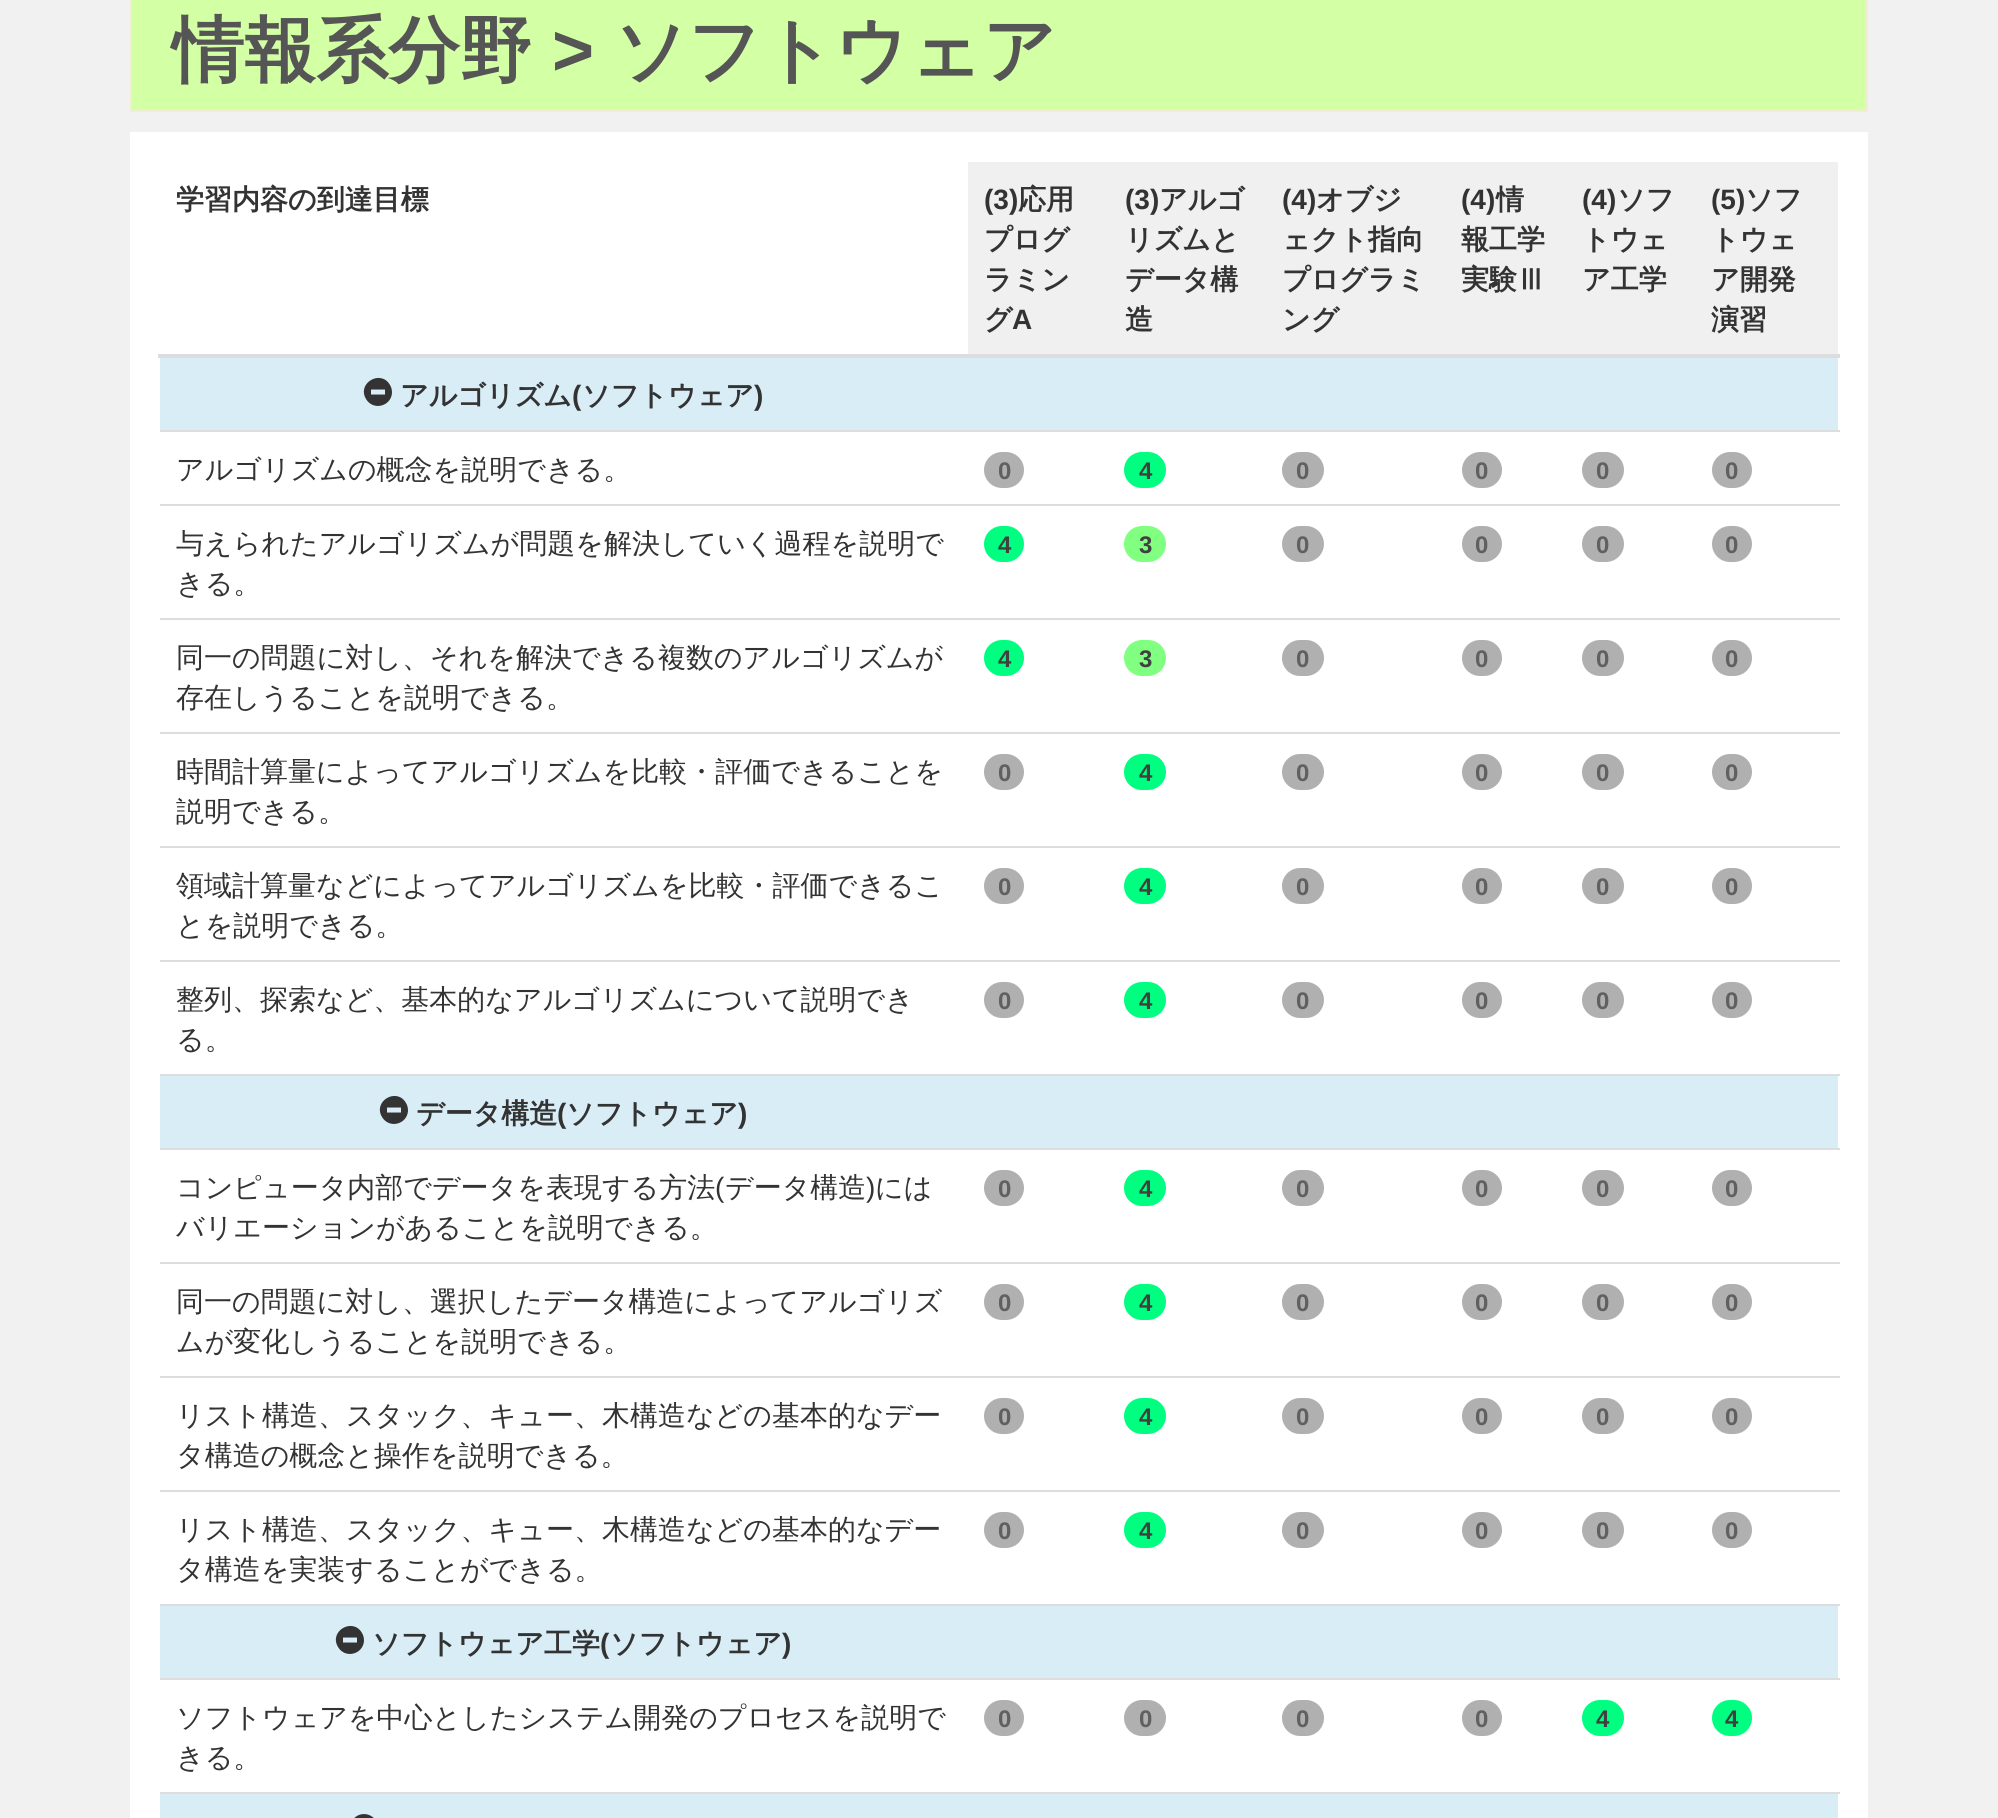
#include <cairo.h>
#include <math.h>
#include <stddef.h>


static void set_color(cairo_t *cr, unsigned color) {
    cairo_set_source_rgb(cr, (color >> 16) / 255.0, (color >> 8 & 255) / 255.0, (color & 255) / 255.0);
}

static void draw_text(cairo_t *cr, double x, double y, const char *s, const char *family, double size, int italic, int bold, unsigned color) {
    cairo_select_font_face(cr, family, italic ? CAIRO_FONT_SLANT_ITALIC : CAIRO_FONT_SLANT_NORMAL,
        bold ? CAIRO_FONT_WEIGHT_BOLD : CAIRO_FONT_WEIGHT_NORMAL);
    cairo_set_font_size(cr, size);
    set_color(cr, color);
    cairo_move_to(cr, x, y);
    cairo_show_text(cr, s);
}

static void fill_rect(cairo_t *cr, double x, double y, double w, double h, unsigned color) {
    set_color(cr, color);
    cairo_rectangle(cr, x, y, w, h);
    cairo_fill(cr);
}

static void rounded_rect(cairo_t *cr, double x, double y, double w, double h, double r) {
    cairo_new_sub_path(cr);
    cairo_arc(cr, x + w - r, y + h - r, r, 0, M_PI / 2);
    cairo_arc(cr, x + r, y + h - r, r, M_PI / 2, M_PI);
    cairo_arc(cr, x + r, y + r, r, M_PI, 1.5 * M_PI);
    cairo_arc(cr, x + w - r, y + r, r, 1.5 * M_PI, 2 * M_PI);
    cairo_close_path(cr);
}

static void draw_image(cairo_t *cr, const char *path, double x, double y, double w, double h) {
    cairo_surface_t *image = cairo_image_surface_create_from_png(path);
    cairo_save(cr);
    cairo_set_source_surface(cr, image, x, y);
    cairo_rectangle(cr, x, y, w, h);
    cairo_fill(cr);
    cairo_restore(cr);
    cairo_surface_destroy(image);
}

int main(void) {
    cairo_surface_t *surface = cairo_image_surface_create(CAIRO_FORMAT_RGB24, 1998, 1818);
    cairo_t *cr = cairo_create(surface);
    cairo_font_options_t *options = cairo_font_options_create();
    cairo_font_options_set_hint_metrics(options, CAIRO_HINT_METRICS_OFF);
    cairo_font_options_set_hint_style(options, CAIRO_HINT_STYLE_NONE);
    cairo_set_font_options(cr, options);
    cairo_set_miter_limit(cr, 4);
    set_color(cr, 0xF1F1F1);
    cairo_paint(cr);
    set_color(cr, 0xD3FFA5);
    cairo_rectangle(cr, 131, -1, 1736, 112);
    cairo_fill_preserve(cr);
    set_color(cr, 0xF1ECD2);
    cairo_stroke(cr);
    draw_text(cr, 172, 75, "情報系分野", "WenQuanYi Zen Hei", 72, 0, 1, 0x555555);
    draw_text(cr, 552, 75, ">", "Liberation Sans", 72, 0, 1, 0x555555);
    draw_text(cr, 614, 75, "ソフトウェア", "WenQuanYi Zen Hei", 72, 0, 1, 0x555555);
    fill_rect(cr, 130, 132, 1738, 1686, 0xFFFFFF);
    draw_text(cr, 176, 209, "学習内容の到達目標", "WenQuanYi Zen Hei", 28, 0, 1, 0x333333);
    fill_rect(cr, 968, 162, 870, 192, 0xF0F0F0);
    draw_text(cr, 984, 209, "(3)", "Liberation Sans", 28, 0, 1, 0x333333);
    draw_text(cr, 1018, 209, "応用", "WenQuanYi Zen Hei", 28, 0, 1, 0x333333);
    draw_text(cr, 984, 249, "プログ", "WenQuanYi Zen Hei", 28, 0, 1, 0x333333);
    draw_text(cr, 984, 289, "ラミン", "WenQuanYi Zen Hei", 28, 0, 1, 0x333333);
    draw_text(cr, 984, 329, "グ", "WenQuanYi Zen Hei", 28, 0, 1, 0x333333);
    draw_text(cr, 1012, 329, "A", "Liberation Sans", 28, 0, 1, 0x333333);
    draw_text(cr, 1125, 209, "(3)", "Liberation Sans", 28, 0, 1, 0x333333);
    draw_text(cr, 1159, 209, "アルゴ", "WenQuanYi Zen Hei", 28, 0, 1, 0x333333);
    draw_text(cr, 1125, 249, "リズムと", "WenQuanYi Zen Hei", 28, 0, 1, 0x333333);
    draw_text(cr, 1125, 289, "データ構", "WenQuanYi Zen Hei", 28, 0, 1, 0x333333);
    draw_text(cr, 1125, 329, "造", "WenQuanYi Zen Hei", 28, 0, 1, 0x333333);
    draw_text(cr, 1282, 209, "(4)", "Liberation Sans", 28, 0, 1, 0x333333);
    draw_text(cr, 1316, 209, "オブジ", "WenQuanYi Zen Hei", 28, 0, 1, 0x333333);
    draw_text(cr, 1282, 249, "ェクト指向", "WenQuanYi Zen Hei", 28, 0, 1, 0x333333);
    draw_text(cr, 1282, 289, "プログラミ", "WenQuanYi Zen Hei", 28, 0, 1, 0x333333);
    draw_text(cr, 1282, 329, "ング", "WenQuanYi Zen Hei", 28, 0, 1, 0x333333);
    draw_text(cr, 1461, 209, "(4)", "Liberation Sans", 28, 0, 1, 0x333333);
    draw_text(cr, 1496, 209, "情", "WenQuanYi Zen Hei", 28, 0, 1, 0x333333);
    draw_text(cr, 1461, 249, "報工学", "WenQuanYi Zen Hei", 28, 0, 1, 0x333333);
    draw_text(cr, 1461, 289, "実験Ⅲ", "WenQuanYi Zen Hei", 28, 0, 1, 0x333333);
    draw_text(cr, 1582, 209, "(4)", "Liberation Sans", 28, 0, 1, 0x333333);
    draw_text(cr, 1617, 209, "ソフ", "WenQuanYi Zen Hei", 28, 0, 1, 0x333333);
    draw_text(cr, 1582, 249, "トウェ", "WenQuanYi Zen Hei", 28, 0, 1, 0x333333);
    draw_text(cr, 1582, 289, "ア工学", "WenQuanYi Zen Hei", 28, 0, 1, 0x333333);
    fill_rect(cr, 158, 354, 1682, 4, 0xDDDDDD);
    draw_text(cr, 1711, 209, "(5)", "Liberation Sans", 28, 0, 1, 0x333333);
    draw_text(cr, 1745, 209, "ソフ", "WenQuanYi Zen Hei", 28, 0, 1, 0x333333);
    draw_text(cr, 1711, 249, "トウェ", "WenQuanYi Zen Hei", 28, 0, 1, 0x333333);
    draw_text(cr, 1711, 289, "ア開発", "WenQuanYi Zen Hei", 28, 0, 1, 0x333333);
    draw_text(cr, 1711, 329, "演習", "WenQuanYi Zen Hei", 28, 0, 1, 0x333333);
    fill_rect(cr, 160, 358, 1678, 72, 0xD9EDF7);
    set_color(cr, 0x333333);
    cairo_new_path(cr);
    cairo_move_to(cr, 366, 399);
    cairo_curve_to(cr, 356.5, 383, 381, 369, 390, 385);
    cairo_curve_to(cr, 391.5, 387.5, 392, 390, 392, 393);
    cairo_curve_to(cr, 391, 406.5, 373, 411, 366, 399);
    cairo_close_path(cr);
    cairo_move_to(cr, 371, 394.5);
    cairo_line_to(cr, 385, 394.5);
    cairo_line_to(cr, 385, 389.5);
    cairo_line_to(cr, 371, 389.5);
    cairo_close_path(cr);
    cairo_fill(cr);
    draw_text(cr, 400, 405, "アルゴリズム", "WenQuanYi Zen Hei", 28, 0, 1, 0x333333);
    draw_text(cr, 572, 405, "(", "Liberation Sans", 28, 0, 1, 0x333333);
    draw_text(cr, 582, 405, "ソフトウェア", "WenQuanYi Zen Hei", 28, 0, 1, 0x333333);
    draw_text(cr, 754, 405, ")", "Liberation Sans", 28, 0, 1, 0x333333);
    draw_text(cr, 176, 479, "アルゴリズムの概念を説明できる。", "WenQuanYi Zen Hei Medium", 28, 0, 0, 0x333333);
    set_color(cr, 0xB0B0B0);
    rounded_rect(cr, 984, 452, 40, 36, 18);
    cairo_fill(cr);
    draw_text(cr, 998, 479, "0", "Liberation Sans", 24, 0, 1, 0x606060);
    set_color(cr, 0x00FF80);
    rounded_rect(cr, 1124, 452, 42, 36, 18);
    cairo_fill(cr);
    draw_text(cr, 1139, 479, "4", "Liberation Sans", 24, 0, 1, 0x404040);
    set_color(cr, 0xB0B0B0);
    rounded_rect(cr, 1282, 452, 42, 36, 18);
    cairo_fill(cr);
    draw_text(cr, 1296, 479, "0", "Liberation Sans", 24, 0, 1, 0x606060);
    set_color(cr, 0xB0B0B0);
    rounded_rect(cr, 1462, 452, 40, 36, 18);
    cairo_fill(cr);
    draw_text(cr, 1475, 479, "0", "Liberation Sans", 24, 0, 1, 0x606060);
    set_color(cr, 0xB0B0B0);
    rounded_rect(cr, 1582, 452, 42, 36, 18);
    cairo_fill(cr);
    draw_text(cr, 1596, 479, "0", "Liberation Sans", 24, 0, 1, 0x606060);
    fill_rect(cr, 160, 430, 1680, 2, 0xDDDDDD);
    set_color(cr, 0xB0B0B0);
    rounded_rect(cr, 1712, 452, 40, 36, 18);
    cairo_fill(cr);
    draw_text(cr, 1725, 479, "0", "Liberation Sans", 24, 0, 1, 0x606060);
    draw_text(cr, 176, 553, "与えられたアルゴリズムが問題を解決していく過程を説明で", "WenQuanYi Zen Hei Medium", 28, 0, 0, 0x333333);
    draw_text(cr, 176, 593, "きる。", "WenQuanYi Zen Hei Medium", 28, 0, 0, 0x333333);
    set_color(cr, 0x00FF80);
    rounded_rect(cr, 984, 526, 40, 36, 18);
    cairo_fill(cr);
    draw_text(cr, 998, 553, "4", "Liberation Sans", 24, 0, 1, 0x404040);
    set_color(cr, 0x80FF80);
    rounded_rect(cr, 1124, 526, 42, 36, 18);
    cairo_fill(cr);
    draw_text(cr, 1139, 553, "3", "Liberation Sans", 24, 0, 1, 0x404040);
    set_color(cr, 0xB0B0B0);
    rounded_rect(cr, 1282, 526, 42, 36, 18);
    cairo_fill(cr);
    draw_text(cr, 1296, 553, "0", "Liberation Sans", 24, 0, 1, 0x606060);
    set_color(cr, 0xB0B0B0);
    rounded_rect(cr, 1462, 526, 40, 36, 18);
    cairo_fill(cr);
    draw_text(cr, 1475, 553, "0", "Liberation Sans", 24, 0, 1, 0x606060);
    set_color(cr, 0xB0B0B0);
    rounded_rect(cr, 1582, 526, 42, 36, 18);
    cairo_fill(cr);
    draw_text(cr, 1596, 553, "0", "Liberation Sans", 24, 0, 1, 0x606060);
    fill_rect(cr, 160, 504, 1680, 2, 0xDDDDDD);
    set_color(cr, 0xB0B0B0);
    rounded_rect(cr, 1712, 526, 40, 36, 18);
    cairo_fill(cr);
    draw_text(cr, 1725, 553, "0", "Liberation Sans", 24, 0, 1, 0x606060);
    draw_text(cr, 176, 667, "同一の問題に対し、それを解決できる複数のアルゴリズムが", "WenQuanYi Zen Hei Medium", 28, 0, 0, 0x333333);
    draw_text(cr, 176, 707, "存在しうることを説明できる。", "WenQuanYi Zen Hei Medium", 28, 0, 0, 0x333333);
    set_color(cr, 0x00FF80);
    rounded_rect(cr, 984, 640, 40, 36, 18);
    cairo_fill(cr);
    draw_text(cr, 998, 667, "4", "Liberation Sans", 24, 0, 1, 0x404040);
    set_color(cr, 0x80FF80);
    rounded_rect(cr, 1124, 640, 42, 36, 18);
    cairo_fill(cr);
    draw_text(cr, 1139, 667, "3", "Liberation Sans", 24, 0, 1, 0x404040);
    set_color(cr, 0xB0B0B0);
    rounded_rect(cr, 1282, 640, 42, 36, 18);
    cairo_fill(cr);
    draw_text(cr, 1296, 667, "0", "Liberation Sans", 24, 0, 1, 0x606060);
    set_color(cr, 0xB0B0B0);
    rounded_rect(cr, 1462, 640, 40, 36, 18);
    cairo_fill(cr);
    draw_text(cr, 1475, 667, "0", "Liberation Sans", 24, 0, 1, 0x606060);
    set_color(cr, 0xB0B0B0);
    rounded_rect(cr, 1582, 640, 42, 36, 18);
    cairo_fill(cr);
    draw_text(cr, 1596, 667, "0", "Liberation Sans", 24, 0, 1, 0x606060);
    fill_rect(cr, 160, 618, 1680, 2, 0xDDDDDD);
    set_color(cr, 0xB0B0B0);
    rounded_rect(cr, 1712, 640, 40, 36, 18);
    cairo_fill(cr);
    draw_text(cr, 1725, 667, "0", "Liberation Sans", 24, 0, 1, 0x606060);
    draw_text(cr, 176, 781, "時間計算量によってアルゴリズムを比較・評価できることを", "WenQuanYi Zen Hei Medium", 28, 0, 0, 0x333333);
    draw_text(cr, 176, 821, "説明できる。", "WenQuanYi Zen Hei Medium", 28, 0, 0, 0x333333);
    set_color(cr, 0xB0B0B0);
    rounded_rect(cr, 984, 754, 40, 36, 18);
    cairo_fill(cr);
    draw_text(cr, 998, 781, "0", "Liberation Sans", 24, 0, 1, 0x606060);
    set_color(cr, 0x00FF80);
    rounded_rect(cr, 1124, 754, 42, 36, 18);
    cairo_fill(cr);
    draw_text(cr, 1139, 781, "4", "Liberation Sans", 24, 0, 1, 0x404040);
    set_color(cr, 0xB0B0B0);
    rounded_rect(cr, 1282, 754, 42, 36, 18);
    cairo_fill(cr);
    draw_text(cr, 1296, 781, "0", "Liberation Sans", 24, 0, 1, 0x606060);
    set_color(cr, 0xB0B0B0);
    rounded_rect(cr, 1462, 754, 40, 36, 18);
    cairo_fill(cr);
    draw_text(cr, 1475, 781, "0", "Liberation Sans", 24, 0, 1, 0x606060);
    set_color(cr, 0xB0B0B0);
    rounded_rect(cr, 1582, 754, 42, 36, 18);
    cairo_fill(cr);
    draw_text(cr, 1596, 781, "0", "Liberation Sans", 24, 0, 1, 0x606060);
    fill_rect(cr, 160, 732, 1680, 2, 0xDDDDDD);
    set_color(cr, 0xB0B0B0);
    rounded_rect(cr, 1712, 754, 40, 36, 18);
    cairo_fill(cr);
    draw_text(cr, 1725, 781, "0", "Liberation Sans", 24, 0, 1, 0x606060);
    draw_text(cr, 176, 895, "領域計算量などによってアルゴリズムを比較・評価できるこ", "WenQuanYi Zen Hei Medium", 28, 0, 0, 0x333333);
    draw_text(cr, 176, 935, "とを説明できる。", "WenQuanYi Zen Hei Medium", 28, 0, 0, 0x333333);
    set_color(cr, 0xB0B0B0);
    rounded_rect(cr, 984, 868, 40, 36, 18);
    cairo_fill(cr);
    draw_text(cr, 998, 895, "0", "Liberation Sans", 24, 0, 1, 0x606060);
    set_color(cr, 0x00FF80);
    rounded_rect(cr, 1124, 868, 42, 36, 18);
    cairo_fill(cr);
    draw_text(cr, 1139, 895, "4", "Liberation Sans", 24, 0, 1, 0x404040);
    set_color(cr, 0xB0B0B0);
    rounded_rect(cr, 1282, 868, 42, 36, 18);
    cairo_fill(cr);
    draw_text(cr, 1296, 895, "0", "Liberation Sans", 24, 0, 1, 0x606060);
    set_color(cr, 0xB0B0B0);
    rounded_rect(cr, 1462, 868, 40, 36, 18);
    cairo_fill(cr);
    draw_text(cr, 1475, 895, "0", "Liberation Sans", 24, 0, 1, 0x606060);
    set_color(cr, 0xB0B0B0);
    rounded_rect(cr, 1582, 868, 42, 36, 18);
    cairo_fill(cr);
    draw_text(cr, 1596, 895, "0", "Liberation Sans", 24, 0, 1, 0x606060);
    fill_rect(cr, 160, 846, 1680, 2, 0xDDDDDD);
    set_color(cr, 0xB0B0B0);
    rounded_rect(cr, 1712, 868, 40, 36, 18);
    cairo_fill(cr);
    draw_text(cr, 1725, 895, "0", "Liberation Sans", 24, 0, 1, 0x606060);
    draw_text(cr, 176, 1009, "整列、探索など、基本的なアルゴリズムについて説明でき", "WenQuanYi Zen Hei Medium", 28, 0, 0, 0x333333);
    draw_text(cr, 176, 1049, "る。", "WenQuanYi Zen Hei Medium", 28, 0, 0, 0x333333);
    set_color(cr, 0xB0B0B0);
    rounded_rect(cr, 984, 982, 40, 36, 18);
    cairo_fill(cr);
    draw_text(cr, 998, 1009, "0", "Liberation Sans", 24, 0, 1, 0x606060);
    set_color(cr, 0x00FF80);
    rounded_rect(cr, 1124, 982, 42, 36, 18);
    cairo_fill(cr);
    draw_text(cr, 1139, 1009, "4", "Liberation Sans", 24, 0, 1, 0x404040);
    set_color(cr, 0xB0B0B0);
    rounded_rect(cr, 1282, 982, 42, 36, 18);
    cairo_fill(cr);
    draw_text(cr, 1296, 1009, "0", "Liberation Sans", 24, 0, 1, 0x606060);
    set_color(cr, 0xB0B0B0);
    rounded_rect(cr, 1462, 982, 40, 36, 18);
    cairo_fill(cr);
    draw_text(cr, 1475, 1009, "0", "Liberation Sans", 24, 0, 1, 0x606060);
    set_color(cr, 0xB0B0B0);
    rounded_rect(cr, 1582, 982, 42, 36, 18);
    cairo_fill(cr);
    draw_text(cr, 1596, 1009, "0", "Liberation Sans", 24, 0, 1, 0x606060);
    fill_rect(cr, 160, 960, 1680, 2, 0xDDDDDD);
    set_color(cr, 0xB0B0B0);
    rounded_rect(cr, 1712, 982, 40, 36, 18);
    cairo_fill(cr);
    draw_text(cr, 1725, 1009, "0", "Liberation Sans", 24, 0, 1, 0x606060);
    fill_rect(cr, 160, 1074, 1680, 2, 0xDDDDDD);
    fill_rect(cr, 160, 1076, 1678, 72, 0xD9EDF7);
    set_color(cr, 0x333333);
    cairo_new_path(cr);
    cairo_move_to(cr, 382, 1117);
    cairo_curve_to(cr, 372.5, 1101, 397, 1087, 406, 1103);
    cairo_curve_to(cr, 407.5, 1105.5, 408, 1108, 408, 1111);
    cairo_curve_to(cr, 407, 1124.5, 389, 1129, 382, 1117);
    cairo_close_path(cr);
    cairo_move_to(cr, 387, 1112.5);
    cairo_line_to(cr, 401, 1112.5);
    cairo_line_to(cr, 401, 1107.5);
    cairo_line_to(cr, 387, 1107.5);
    cairo_close_path(cr);
    cairo_fill(cr);
    draw_text(cr, 416, 1123, "データ構造", "WenQuanYi Zen Hei", 28, 0, 1, 0x333333);
    draw_text(cr, 557, 1123, "(", "Liberation Sans", 28, 0, 1, 0x333333);
    draw_text(cr, 566, 1123, "ソフトウェア", "WenQuanYi Zen Hei", 28, 0, 1, 0x333333);
    draw_text(cr, 738, 1123, ")", "Liberation Sans", 28, 0, 1, 0x333333);
    draw_text(cr, 176, 1197, "コンピュータ内部でデータを表現する方法", "WenQuanYi Zen Hei Medium", 28, 0, 0, 0x333333);
    draw_text(cr, 715, 1197, "(", "Liberation Sans", 28, 0, 0, 0x333333);
    draw_text(cr, 725, 1197, "データ構造", "WenQuanYi Zen Hei Medium", 28, 0, 0, 0x333333);
    draw_text(cr, 866, 1197, ")", "Liberation Sans", 28, 0, 0, 0x333333);
    draw_text(cr, 875, 1197, "には", "WenQuanYi Zen Hei Medium", 28, 0, 0, 0x333333);
    draw_text(cr, 176, 1237, "バリエーションがあることを説明できる。", "WenQuanYi Zen Hei Medium", 28, 0, 0, 0x333333);
    set_color(cr, 0xB0B0B0);
    rounded_rect(cr, 984, 1170, 40, 36, 18);
    cairo_fill(cr);
    draw_text(cr, 998, 1197, "0", "Liberation Sans", 24, 0, 1, 0x606060);
    set_color(cr, 0x00FF80);
    rounded_rect(cr, 1124, 1170, 42, 36, 18);
    cairo_fill(cr);
    draw_text(cr, 1139, 1197, "4", "Liberation Sans", 24, 0, 1, 0x404040);
    set_color(cr, 0xB0B0B0);
    rounded_rect(cr, 1282, 1170, 42, 36, 18);
    cairo_fill(cr);
    draw_text(cr, 1296, 1197, "0", "Liberation Sans", 24, 0, 1, 0x606060);
    set_color(cr, 0xB0B0B0);
    rounded_rect(cr, 1462, 1170, 40, 36, 18);
    cairo_fill(cr);
    draw_text(cr, 1475, 1197, "0", "Liberation Sans", 24, 0, 1, 0x606060);
    set_color(cr, 0xB0B0B0);
    rounded_rect(cr, 1582, 1170, 42, 36, 18);
    cairo_fill(cr);
    draw_text(cr, 1596, 1197, "0", "Liberation Sans", 24, 0, 1, 0x606060);
    fill_rect(cr, 160, 1148, 1680, 2, 0xDDDDDD);
    set_color(cr, 0xB0B0B0);
    rounded_rect(cr, 1712, 1170, 40, 36, 18);
    cairo_fill(cr);
    draw_text(cr, 1725, 1197, "0", "Liberation Sans", 24, 0, 1, 0x606060);
    draw_text(cr, 176, 1311, "同一の問題に対し、選択したデータ構造によってアルゴリズ", "WenQuanYi Zen Hei Medium", 28, 0, 0, 0x333333);
    draw_text(cr, 176, 1351, "ムが変化しうることを説明できる。", "WenQuanYi Zen Hei Medium", 28, 0, 0, 0x333333);
    set_color(cr, 0xB0B0B0);
    rounded_rect(cr, 984, 1284, 40, 36, 18);
    cairo_fill(cr);
    draw_text(cr, 998, 1311, "0", "Liberation Sans", 24, 0, 1, 0x606060);
    set_color(cr, 0x00FF80);
    rounded_rect(cr, 1124, 1284, 42, 36, 18);
    cairo_fill(cr);
    draw_text(cr, 1139, 1311, "4", "Liberation Sans", 24, 0, 1, 0x404040);
    set_color(cr, 0xB0B0B0);
    rounded_rect(cr, 1282, 1284, 42, 36, 18);
    cairo_fill(cr);
    draw_text(cr, 1296, 1311, "0", "Liberation Sans", 24, 0, 1, 0x606060);
    set_color(cr, 0xB0B0B0);
    rounded_rect(cr, 1462, 1284, 40, 36, 18);
    cairo_fill(cr);
    draw_text(cr, 1475, 1311, "0", "Liberation Sans", 24, 0, 1, 0x606060);
    set_color(cr, 0xB0B0B0);
    rounded_rect(cr, 1582, 1284, 42, 36, 18);
    cairo_fill(cr);
    draw_text(cr, 1596, 1311, "0", "Liberation Sans", 24, 0, 1, 0x606060);
    fill_rect(cr, 160, 1262, 1680, 2, 0xDDDDDD);
    set_color(cr, 0xB0B0B0);
    rounded_rect(cr, 1712, 1284, 40, 36, 18);
    cairo_fill(cr);
    draw_text(cr, 1725, 1311, "0", "Liberation Sans", 24, 0, 1, 0x606060);
    draw_text(cr, 176, 1425, "リスト構造、スタック、キュー、木構造などの基本的なデー", "WenQuanYi Zen Hei Medium", 28, 0, 0, 0x333333);
    draw_text(cr, 176, 1465, "タ構造の概念と操作を説明できる。", "WenQuanYi Zen Hei Medium", 28, 0, 0, 0x333333);
    set_color(cr, 0xB0B0B0);
    rounded_rect(cr, 984, 1398, 40, 36, 18);
    cairo_fill(cr);
    draw_text(cr, 998, 1425, "0", "Liberation Sans", 24, 0, 1, 0x606060);
    set_color(cr, 0x00FF80);
    rounded_rect(cr, 1124, 1398, 42, 36, 18);
    cairo_fill(cr);
    draw_text(cr, 1139, 1425, "4", "Liberation Sans", 24, 0, 1, 0x404040);
    set_color(cr, 0xB0B0B0);
    rounded_rect(cr, 1282, 1398, 42, 36, 18);
    cairo_fill(cr);
    draw_text(cr, 1296, 1425, "0", "Liberation Sans", 24, 0, 1, 0x606060);
    set_color(cr, 0xB0B0B0);
    rounded_rect(cr, 1462, 1398, 40, 36, 18);
    cairo_fill(cr);
    draw_text(cr, 1475, 1425, "0", "Liberation Sans", 24, 0, 1, 0x606060);
    set_color(cr, 0xB0B0B0);
    rounded_rect(cr, 1582, 1398, 42, 36, 18);
    cairo_fill(cr);
    draw_text(cr, 1596, 1425, "0", "Liberation Sans", 24, 0, 1, 0x606060);
    fill_rect(cr, 160, 1376, 1680, 2, 0xDDDDDD);
    set_color(cr, 0xB0B0B0);
    rounded_rect(cr, 1712, 1398, 40, 36, 18);
    cairo_fill(cr);
    draw_text(cr, 1725, 1425, "0", "Liberation Sans", 24, 0, 1, 0x606060);
    draw_text(cr, 176, 1539, "リスト構造、スタック、キュー、木構造などの基本的なデー", "WenQuanYi Zen Hei Medium", 28, 0, 0, 0x333333);
    draw_text(cr, 176, 1579, "タ構造を実装することができる。", "WenQuanYi Zen Hei Medium", 28, 0, 0, 0x333333);
    set_color(cr, 0xB0B0B0);
    rounded_rect(cr, 984, 1512, 40, 36, 18);
    cairo_fill(cr);
    draw_text(cr, 998, 1539, "0", "Liberation Sans", 24, 0, 1, 0x606060);
    set_color(cr, 0x00FF80);
    rounded_rect(cr, 1124, 1512, 42, 36, 18);
    cairo_fill(cr);
    draw_text(cr, 1139, 1539, "4", "Liberation Sans", 24, 0, 1, 0x404040);
    set_color(cr, 0xB0B0B0);
    rounded_rect(cr, 1282, 1512, 42, 36, 18);
    cairo_fill(cr);
    draw_text(cr, 1296, 1539, "0", "Liberation Sans", 24, 0, 1, 0x606060);
    set_color(cr, 0xB0B0B0);
    rounded_rect(cr, 1462, 1512, 40, 36, 18);
    cairo_fill(cr);
    draw_text(cr, 1475, 1539, "0", "Liberation Sans", 24, 0, 1, 0x606060);
    set_color(cr, 0xB0B0B0);
    rounded_rect(cr, 1582, 1512, 42, 36, 18);
    cairo_fill(cr);
    draw_text(cr, 1596, 1539, "0", "Liberation Sans", 24, 0, 1, 0x606060);
    fill_rect(cr, 160, 1490, 1680, 2, 0xDDDDDD);
    set_color(cr, 0xB0B0B0);
    rounded_rect(cr, 1712, 1512, 40, 36, 18);
    cairo_fill(cr);
    draw_text(cr, 1725, 1539, "0", "Liberation Sans", 24, 0, 1, 0x606060);
    fill_rect(cr, 160, 1604, 1680, 2, 0xDDDDDD);
    fill_rect(cr, 160, 1606, 1678, 72, 0xD9EDF7);
    set_color(cr, 0x333333);
    cairo_new_path(cr);
    cairo_move_to(cr, 338, 1647);
    cairo_curve_to(cr, 328.5, 1631, 353, 1617, 362, 1633);
    cairo_curve_to(cr, 363.5, 1635.5, 364, 1638, 364, 1641);
    cairo_curve_to(cr, 363, 1654.5, 345, 1659, 338, 1647);
    cairo_close_path(cr);
    cairo_move_to(cr, 343, 1642.5);
    cairo_line_to(cr, 357, 1642.5);
    cairo_line_to(cr, 357, 1637.5);
    cairo_line_to(cr, 343, 1637.5);
    cairo_close_path(cr);
    cairo_fill(cr);
    draw_text(cr, 372, 1653, "ソフトウェア工学", "WenQuanYi Zen Hei", 28, 0, 1, 0x333333);
    draw_text(cr, 600, 1653, "(", "Liberation Sans", 28, 0, 1, 0x333333);
    draw_text(cr, 610, 1653, "ソフトウェア", "WenQuanYi Zen Hei", 28, 0, 1, 0x333333);
    draw_text(cr, 782, 1653, ")", "Liberation Sans", 28, 0, 1, 0x333333);
    draw_text(cr, 176, 1727, "ソフトウェアを中心としたシステム開発のプロセスを説明で", "WenQuanYi Zen Hei Medium", 28, 0, 0, 0x333333);
    draw_text(cr, 176, 1767, "きる。", "WenQuanYi Zen Hei Medium", 28, 0, 0, 0x333333);
    set_color(cr, 0xB0B0B0);
    rounded_rect(cr, 984, 1700, 40, 36, 18);
    cairo_fill(cr);
    draw_text(cr, 998, 1727, "0", "Liberation Sans", 24, 0, 1, 0x606060);
    set_color(cr, 0xB0B0B0);
    rounded_rect(cr, 1124, 1700, 42, 36, 18);
    cairo_fill(cr);
    draw_text(cr, 1139, 1727, "0", "Liberation Sans", 24, 0, 1, 0x606060);
    set_color(cr, 0xB0B0B0);
    rounded_rect(cr, 1282, 1700, 42, 36, 18);
    cairo_fill(cr);
    draw_text(cr, 1296, 1727, "0", "Liberation Sans", 24, 0, 1, 0x606060);
    set_color(cr, 0xB0B0B0);
    rounded_rect(cr, 1462, 1700, 40, 36, 18);
    cairo_fill(cr);
    draw_text(cr, 1475, 1727, "0", "Liberation Sans", 24, 0, 1, 0x606060);
    set_color(cr, 0x00FF80);
    rounded_rect(cr, 1582, 1700, 42, 36, 18);
    cairo_fill(cr);
    draw_text(cr, 1596, 1727, "4", "Liberation Sans", 24, 0, 1, 0x404040);
    fill_rect(cr, 160, 1678, 1680, 2, 0xDDDDDD);
    set_color(cr, 0x00FF80);
    rounded_rect(cr, 1712, 1700, 40, 36, 18);
    cairo_fill(cr);
    draw_text(cr, 1725, 1727, "4", "Liberation Sans", 24, 0, 1, 0x404040);
    fill_rect(cr, 160, 1792, 1680, 2, 0xDDDDDD);
    fill_rect(cr, 160, 1794, 1678, 24, 0xD9EDF7);
    draw_image(cr, "assets/img1.png", 354, 1814, 20, 4);
    cairo_surface_write_to_png(surface, "output.png");
    cairo_font_options_destroy(options);
    cairo_destroy(cr);
    cairo_surface_destroy(surface);
    return 0;
}
